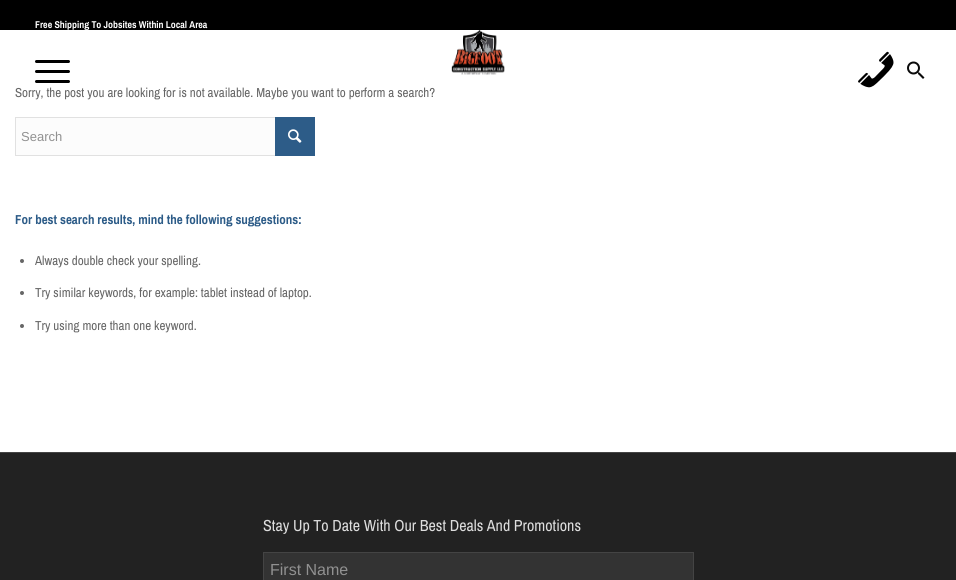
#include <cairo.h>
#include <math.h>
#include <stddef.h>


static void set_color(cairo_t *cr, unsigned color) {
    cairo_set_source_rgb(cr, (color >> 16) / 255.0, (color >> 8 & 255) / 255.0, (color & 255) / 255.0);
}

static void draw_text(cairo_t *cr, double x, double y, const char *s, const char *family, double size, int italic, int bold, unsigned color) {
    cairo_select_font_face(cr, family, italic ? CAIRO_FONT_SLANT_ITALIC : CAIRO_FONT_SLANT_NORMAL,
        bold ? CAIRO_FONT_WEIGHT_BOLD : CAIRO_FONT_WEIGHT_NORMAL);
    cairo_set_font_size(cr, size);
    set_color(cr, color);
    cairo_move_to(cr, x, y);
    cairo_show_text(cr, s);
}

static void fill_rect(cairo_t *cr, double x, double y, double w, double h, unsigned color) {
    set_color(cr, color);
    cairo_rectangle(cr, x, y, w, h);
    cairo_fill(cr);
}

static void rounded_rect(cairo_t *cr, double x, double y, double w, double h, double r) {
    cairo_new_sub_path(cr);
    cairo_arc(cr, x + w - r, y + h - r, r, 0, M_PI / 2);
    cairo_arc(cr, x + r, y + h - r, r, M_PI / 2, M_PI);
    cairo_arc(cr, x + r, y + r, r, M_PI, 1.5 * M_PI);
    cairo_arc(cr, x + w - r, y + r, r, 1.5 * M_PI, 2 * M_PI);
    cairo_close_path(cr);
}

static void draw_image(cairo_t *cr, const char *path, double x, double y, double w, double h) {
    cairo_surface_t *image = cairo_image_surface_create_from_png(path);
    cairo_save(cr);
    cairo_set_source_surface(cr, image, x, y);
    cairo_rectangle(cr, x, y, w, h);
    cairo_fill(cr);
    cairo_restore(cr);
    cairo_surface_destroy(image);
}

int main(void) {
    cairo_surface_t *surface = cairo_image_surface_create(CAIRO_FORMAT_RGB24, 956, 580);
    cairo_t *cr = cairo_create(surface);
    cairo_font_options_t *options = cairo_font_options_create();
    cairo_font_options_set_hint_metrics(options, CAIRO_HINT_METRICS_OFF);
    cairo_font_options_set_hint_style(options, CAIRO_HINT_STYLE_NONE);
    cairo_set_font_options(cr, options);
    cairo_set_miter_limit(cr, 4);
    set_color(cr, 0xFFFFFF);
    cairo_paint(cr);
    fill_rect(cr, 0, 0, 956, 30, 0x000000);
    draw_text(cr, 35, 28, "Free Shipping To Jobsites Within Local Area", "Archivo Narrow", 9.9, 0, 1, 0xFFFFFF);
    draw_image(cr, "assets/img1.png", 858, 51, 36, 37);
    draw_image(cr, "assets/img2.png", 907, 61, 18, 18);
    set_color(cr, 0x000000);
    rounded_rect(cr, 35, 70, 35, 3, 1.5);
    cairo_fill(cr);
    rounded_rect(cr, 35, 60, 35, 3, 1.5);
    cairo_fill(cr);
    rounded_rect(cr, 35, 80, 35, 3, 1.5);
    cairo_fill(cr);
    draw_image(cr, "assets/img3.png", 451, 30, 54, 45);
    draw_text(cr, 15, 97, "Sorry, the post you are looking for is not available. Maybe you want to perform a search?", "Archivo Narrow", 13, 0, 0, 0x666666);
    fill_rect(cr, 16, 118, 259, 37, 0xFCFCFC);
    cairo_rectangle(cr, 15.5, 117.5, 299, 38);
    set_color(cr, 0xE1E1E1);
    cairo_set_line_width(cr, 1);
    cairo_stroke(cr);
    draw_text(cr, 21, 141, "Search", "Liberation Sans", 13, 0, 0, 0x919191);
    fill_rect(cr, 275, 117, 40, 39, 0x2D5C88);
    draw_image(cr, "assets/img4.png", 288, 129, 14, 14);
    draw_text(cr, 15, 224, "For best search results, mind the following suggestions:", "Archivo Narrow", 13, 0, 1, 0x2D5C88);
    set_color(cr, 0x666666);
    cairo_new_path(cr);
    cairo_arc(cr, 22, 261, 2, 0, 2 * M_PI);
    cairo_fill(cr);
    draw_text(cr, 35, 265, "Always double check your spelling.", "Archivo Narrow", 13, 0, 0, 0x666666);
    cairo_new_path(cr);
    cairo_arc(cr, 22, 293, 2, 0, 2 * M_PI);
    cairo_fill(cr);
    draw_text(cr, 35, 297, "Try similar keywords, for example: tablet instead of laptop.", "Archivo Narrow", 13, 0, 0, 0x666666);
    cairo_new_path(cr);
    cairo_arc(cr, 22, 326, 2, 0, 2 * M_PI);
    cairo_fill(cr);
    draw_text(cr, 35, 330, "Try using more than one keyword.", "Archivo Narrow", 13, 0, 0, 0x666666);
    fill_rect(cr, 0, 453, 956, 127, 0x222222);
    fill_rect(cr, 0, 452, 956, 1, 0x444444);
    draw_text(cr, 263, 531, "Stay Up To Date With Our Best Deals And Promotions", "Archivo Narrow", 16, 0, 0, 0xDDDDDD);
    set_color(cr, 0x333333);
    cairo_rectangle(cr, 263.5, 552.5, 430, 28);
    cairo_fill_preserve(cr);
    set_color(cr, 0x444444);
    cairo_stroke(cr);
    draw_text(cr, 270, 575, "First Name", "Liberation Sans", 16, 0, 0, 0x919191);
    cairo_surface_write_to_png(surface, "output.png");
    cairo_font_options_destroy(options);
    cairo_destroy(cr);
    cairo_surface_destroy(surface);
    return 0;
}
